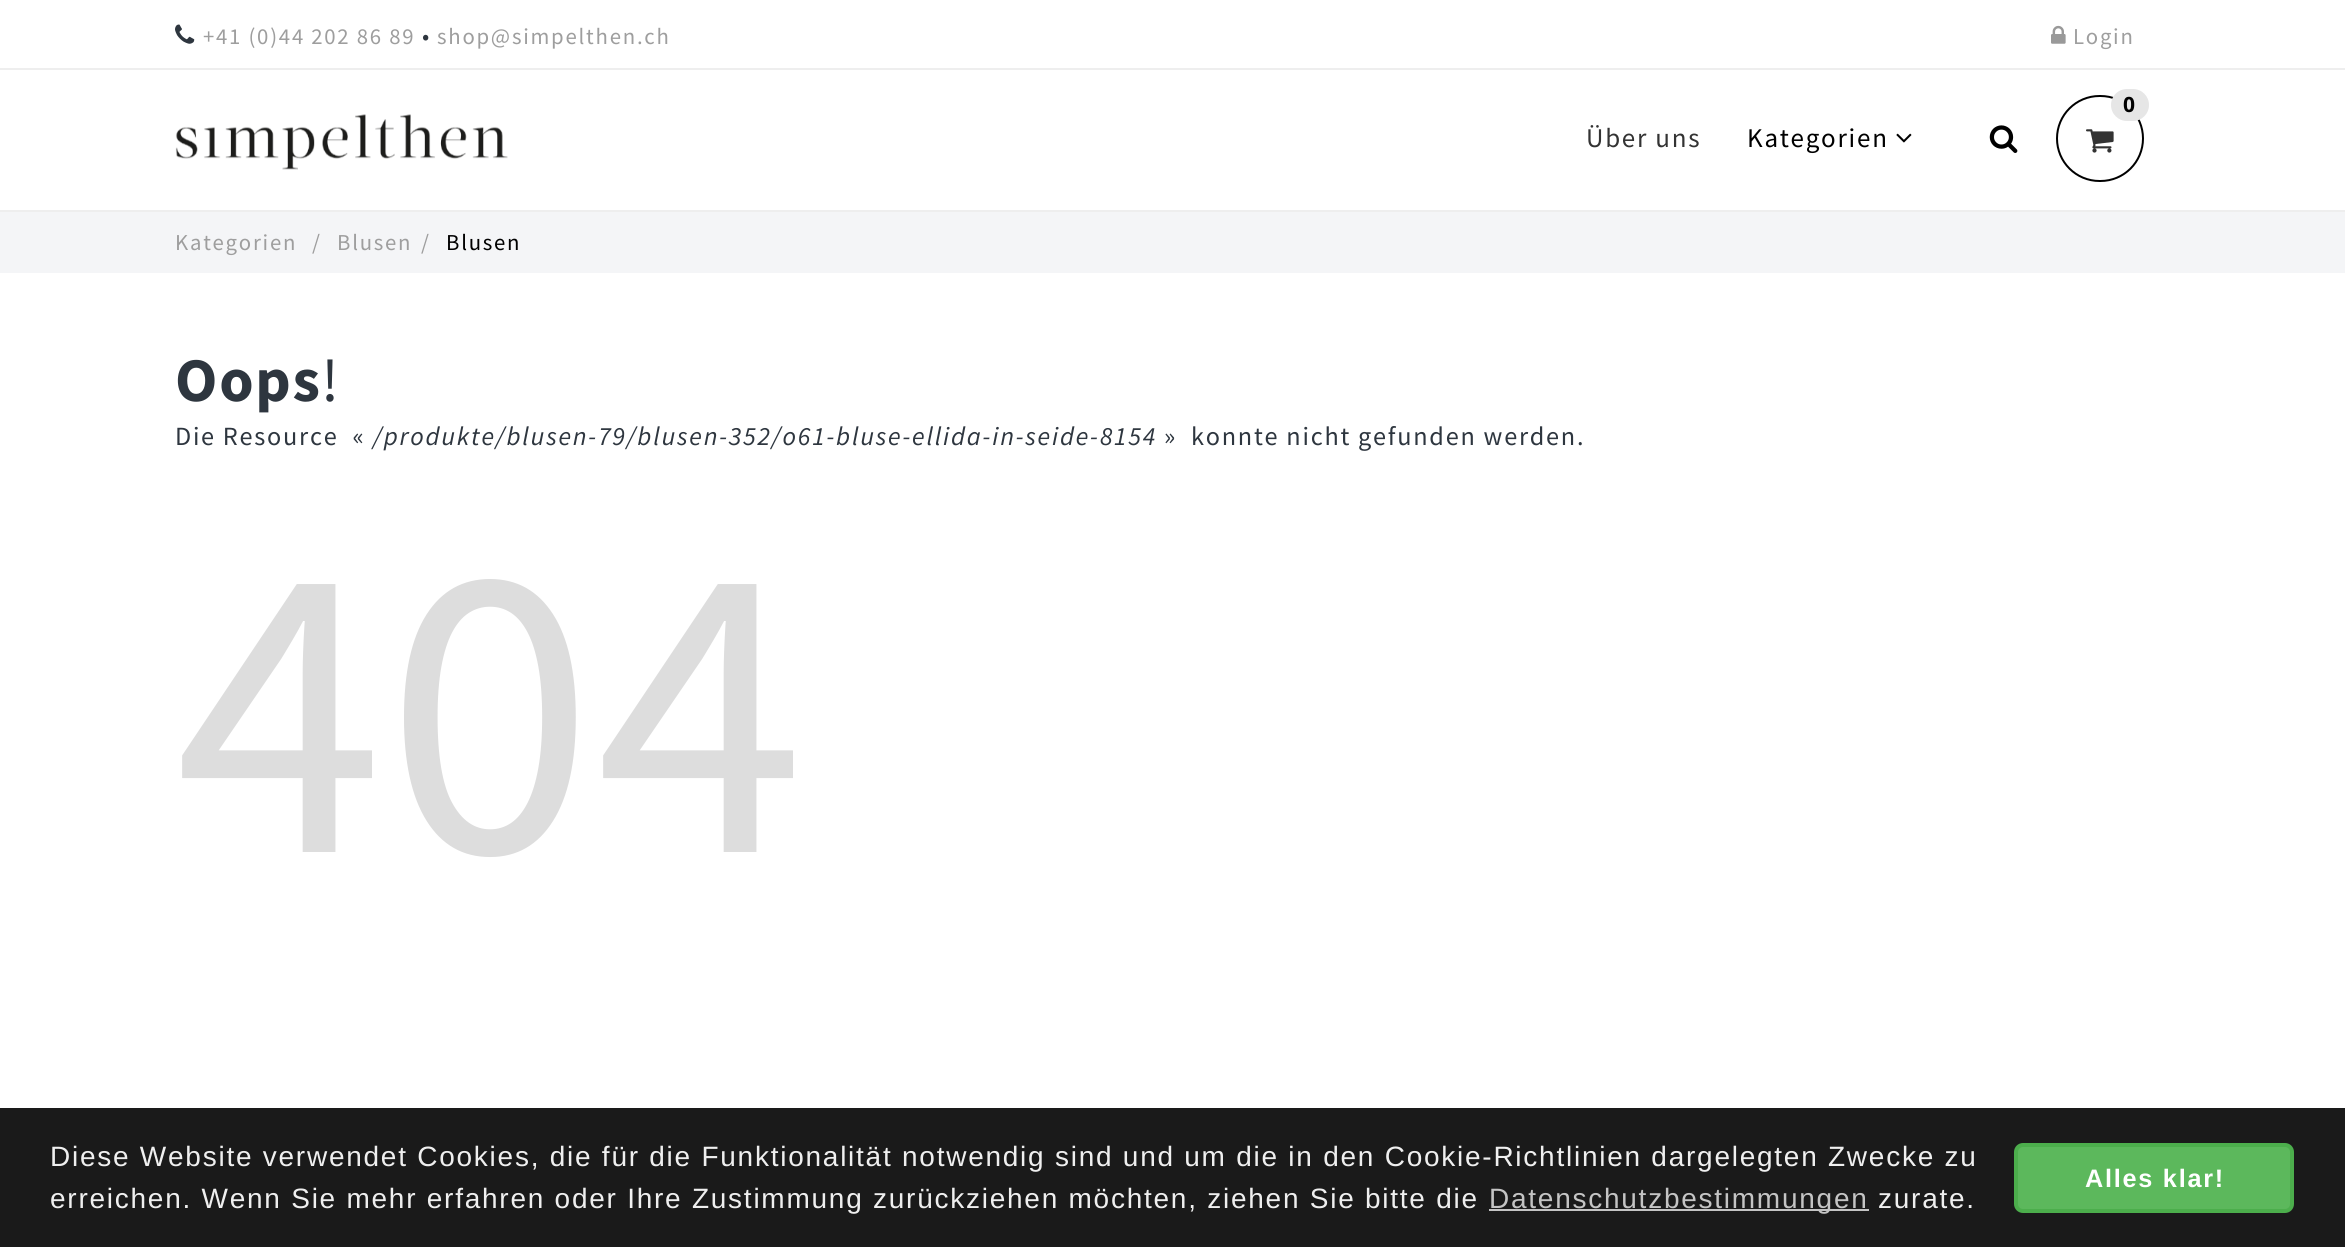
#include <cairo.h>
#include <math.h>
#include <stddef.h>


static void set_color(cairo_t *cr, unsigned color) {
    cairo_set_source_rgb(cr, (color >> 16) / 255.0, (color >> 8 & 255) / 255.0, (color & 255) / 255.0);
}

static void draw_spaced(cairo_t *cr, double x, double y, const char *s, double letter, double word) {
    cairo_move_to(cr, x, y);
    while (*s) {
        char ch[5] = {0};
        int n = 0;
        do ch[n++] = *s++; while ((*s & 0xC0) == 0x80);
        cairo_show_text(cr, ch);
        cairo_rel_move_to(cr, letter + word * (*ch == ' '), 0);
    }
}

static void fill_rect(cairo_t *cr, double x, double y, double w, double h, unsigned color) {
    set_color(cr, color);
    cairo_rectangle(cr, x, y, w, h);
    cairo_fill(cr);
}

static void rounded_rect(cairo_t *cr, double x, double y, double w, double h, double r) {
    cairo_new_sub_path(cr);
    cairo_arc(cr, x + w - r, y + h - r, r, 0, M_PI / 2);
    cairo_arc(cr, x + r, y + h - r, r, M_PI / 2, M_PI);
    cairo_arc(cr, x + r, y + r, r, M_PI, 1.5 * M_PI);
    cairo_arc(cr, x + w - r, y + r, r, 1.5 * M_PI, 2 * M_PI);
    cairo_close_path(cr);
}

static void draw_image(cairo_t *cr, const char *path, double x, double y, double w, double h) {
    cairo_surface_t *image = cairo_image_surface_create_from_png(path);
    cairo_save(cr);
    cairo_set_source_surface(cr, image, x, y);
    cairo_rectangle(cr, x, y, w, h);
    cairo_fill(cr);
    cairo_restore(cr);
    cairo_surface_destroy(image);
}

int main(void) {
    cairo_surface_t *surface = cairo_image_surface_create(CAIRO_FORMAT_RGB24, 2345, 1247);
    cairo_t *cr = cairo_create(surface);
    cairo_font_options_t *options = cairo_font_options_create();
    cairo_font_options_set_hint_metrics(options, CAIRO_HINT_METRICS_OFF);
    cairo_font_options_set_hint_style(options, CAIRO_HINT_STYLE_NONE);
    cairo_set_font_options(cr, options);
    cairo_set_miter_limit(cr, 4);
    set_color(cr, 0xFFFFFF);
    cairo_paint(cr);
    fill_rect(cr, 0, 68, 2345, 2, 0xEEEEEE);
    draw_image(cr, "assets/img1.png", 175, 24, 20, 20);
    cairo_select_font_face(cr, "Source Sans Pro", CAIRO_FONT_SLANT_NORMAL, CAIRO_FONT_WEIGHT_NORMAL);
    cairo_set_font_size(cr, 22.75);
    set_color(cr, 0x9E9E9E);
    draw_spaced(cr, 203, 44, "+41 (0)44 202 86 89", 1.75, 0);
    cairo_set_font_size(cr, 24);
    set_color(cr, 0x2E363F);
    draw_spaced(cr, 422, 44, "•", 1.75, 0);
    cairo_set_font_size(cr, 22.75);
    set_color(cr, 0x9E9E9E);
    draw_spaced(cr, 437, 44, "shop@simpelthen.ch", 1.75, 0);
    draw_image(cr, "assets/img2.png", 2051, 25, 15, 19);
    draw_spaced(cr, 2073, 44, "Login", 1.75, 0);
    fill_rect(cr, 0, 210, 2345, 2, 0xEEEEEE);
    draw_image(cr, "assets/img3.png", 175, 114, 333, 56);
    rounded_rect(cr, 2057, 96, 86, 85, 42.5);
    set_color(cr, 0x000000);
    cairo_stroke(cr);
    set_color(cr, 0xE6E6E6);
    rounded_rect(cr, 2111, 89, 38, 32, 16);
    cairo_fill(cr);
    cairo_select_font_face(cr, "Open Sans", CAIRO_FONT_SLANT_NORMAL, CAIRO_FONT_WEIGHT_BOLD);
    cairo_set_font_size(cr, 21);
    set_color(cr, 0x000000);
    draw_spaced(cr, 2123, 112, "0", 1.75, 0);
    draw_image(cr, "assets/img4.png", 2086, 129, 28, 24);
    cairo_select_font_face(cr, "Source Sans Pro", CAIRO_FONT_SLANT_NORMAL, CAIRO_FONT_WEIGHT_NORMAL);
    cairo_set_font_size(cr, 27);
    set_color(cr, 0x333333);
    draw_spaced(cr, 1586, 147, "Über uns", 1.75, 0);
    set_color(cr, 0x000000);
    draw_spaced(cr, 1747, 147, "Kategorien", 1.75, 0);
    draw_image(cr, "assets/img5.png", 1896, 133, 16, 10);
    draw_image(cr, "assets/img6.png", 1989, 125, 29, 28);
    fill_rect(cr, 0, 212, 2345, 61, 0xF4F5F7);
    cairo_set_font_size(cr, 22.75);
    set_color(cr, 0x9E9E9E);
    draw_spaced(cr, 175, 250, "Kategorien", 1.75, 0);
    draw_spaced(cr, 312, 250, "/", 1.75, 0);
    draw_spaced(cr, 337, 250, "Blusen", 1.75, 0);
    draw_spaced(cr, 421, 250, "/", 1.75, 0);
    set_color(cr, 0x000000);
    draw_spaced(cr, 446, 250, "Blusen", 1.75, 0);
    cairo_select_font_face(cr, "Source Sans Pro", CAIRO_FONT_SLANT_NORMAL, CAIRO_FONT_WEIGHT_BOLD);
    cairo_set_font_size(cr, 62);
    set_color(cr, 0x2E363F);
    draw_spaced(cr, 175, 401, "Oops", 1.75, 0);
    cairo_select_font_face(cr, "Source Sans Pro", CAIRO_FONT_SLANT_NORMAL, CAIRO_FONT_WEIGHT_NORMAL);
    draw_spaced(cr, 321, 401, "!", 1.75, 0);
    cairo_set_font_size(cr, 26.25);
    draw_spaced(cr, 175, 445, "Die Resource  «", 1.75, 0);
    cairo_select_font_face(cr, "Source Sans Pro", CAIRO_FONT_SLANT_ITALIC, CAIRO_FONT_WEIGHT_NORMAL);
    draw_spaced(cr, 373, 445, "/produkte/blusen-79/blusen-352/o61-bluse-ellida-in-seide-8154", 1.75, 0);
    cairo_select_font_face(cr, "Source Sans Pro", CAIRO_FONT_SLANT_NORMAL, CAIRO_FONT_WEIGHT_NORMAL);
    draw_spaced(cr, 1164, 445, "»  konnte nicht gefunden werden.", 1.75, 0);
    cairo_set_font_size(cr, 420);
    set_color(cr, 0xDDDDDD);
    draw_spaced(cr, 175, 852, "404", 1.75, 0);
    fill_rect(cr, 0, 1108, 2345, 139, 0x1A1A1A);
    cairo_select_font_face(cr, "Liberation Sans", CAIRO_FONT_SLANT_NORMAL, CAIRO_FONT_WEIGHT_NORMAL);
    cairo_set_font_size(cr, 28);
    set_color(cr, 0xEFEFEF);
    draw_spaced(cr, 50, 1166, "Diese Website verwendet Cookies, die für die Funktionalität notwendig sind und um die in den Cookie-Richtlinien dargelegten Zwecke zu", 1.75, 0);
    draw_spaced(cr, 50, 1208, "erreichen. Wenn Sie mehr erfahren oder Ihre Zustimmung zurückziehen möchten, ziehen Sie bitte die", 1.75, 0);
    fill_rect(cr, 1489, 1209, 380, 2, 0xC4C4C4);
    draw_spaced(cr, 1489, 1208, "Datenschutzbestimmungen", 1.75, 0);
    set_color(cr, 0xEFEFEF);
    draw_spaced(cr, 1878, 1208, "zurate.", 1.75, 0);
    set_color(cr, 0x5CB85C);
    rounded_rect(cr, 2016, 1145, 276, 66, 7);
    cairo_fill_preserve(cr);
    set_color(cr, 0x4CAE4C);
    cairo_set_line_width(cr, 4);
    cairo_stroke(cr);
    cairo_select_font_face(cr, "Liberation Sans", CAIRO_FONT_SLANT_NORMAL, CAIRO_FONT_WEIGHT_BOLD);
    cairo_set_font_size(cr, 25.25);
    set_color(cr, 0xFFFFFF);
    draw_spaced(cr, 2085, 1187, "Alles klar!", 1.75, 0);
    cairo_surface_write_to_png(surface, "output.png");
    cairo_font_options_destroy(options);
    cairo_destroy(cr);
    cairo_surface_destroy(surface);
    return 0;
}
